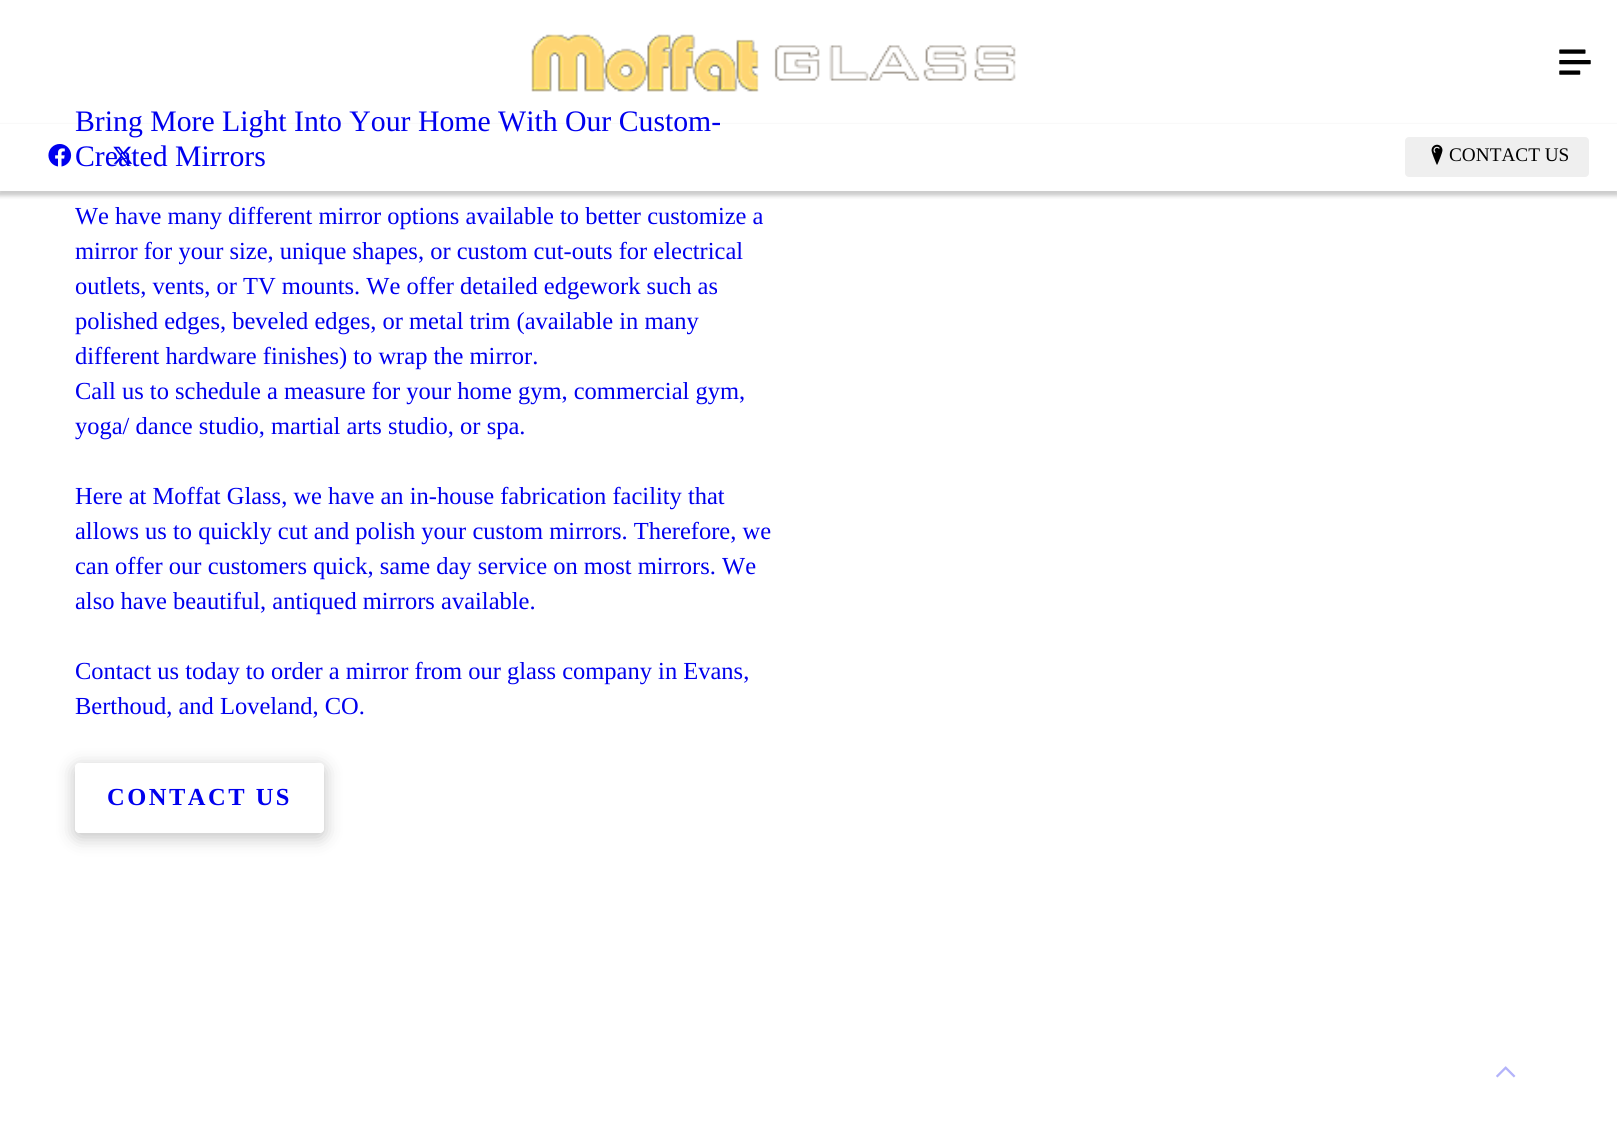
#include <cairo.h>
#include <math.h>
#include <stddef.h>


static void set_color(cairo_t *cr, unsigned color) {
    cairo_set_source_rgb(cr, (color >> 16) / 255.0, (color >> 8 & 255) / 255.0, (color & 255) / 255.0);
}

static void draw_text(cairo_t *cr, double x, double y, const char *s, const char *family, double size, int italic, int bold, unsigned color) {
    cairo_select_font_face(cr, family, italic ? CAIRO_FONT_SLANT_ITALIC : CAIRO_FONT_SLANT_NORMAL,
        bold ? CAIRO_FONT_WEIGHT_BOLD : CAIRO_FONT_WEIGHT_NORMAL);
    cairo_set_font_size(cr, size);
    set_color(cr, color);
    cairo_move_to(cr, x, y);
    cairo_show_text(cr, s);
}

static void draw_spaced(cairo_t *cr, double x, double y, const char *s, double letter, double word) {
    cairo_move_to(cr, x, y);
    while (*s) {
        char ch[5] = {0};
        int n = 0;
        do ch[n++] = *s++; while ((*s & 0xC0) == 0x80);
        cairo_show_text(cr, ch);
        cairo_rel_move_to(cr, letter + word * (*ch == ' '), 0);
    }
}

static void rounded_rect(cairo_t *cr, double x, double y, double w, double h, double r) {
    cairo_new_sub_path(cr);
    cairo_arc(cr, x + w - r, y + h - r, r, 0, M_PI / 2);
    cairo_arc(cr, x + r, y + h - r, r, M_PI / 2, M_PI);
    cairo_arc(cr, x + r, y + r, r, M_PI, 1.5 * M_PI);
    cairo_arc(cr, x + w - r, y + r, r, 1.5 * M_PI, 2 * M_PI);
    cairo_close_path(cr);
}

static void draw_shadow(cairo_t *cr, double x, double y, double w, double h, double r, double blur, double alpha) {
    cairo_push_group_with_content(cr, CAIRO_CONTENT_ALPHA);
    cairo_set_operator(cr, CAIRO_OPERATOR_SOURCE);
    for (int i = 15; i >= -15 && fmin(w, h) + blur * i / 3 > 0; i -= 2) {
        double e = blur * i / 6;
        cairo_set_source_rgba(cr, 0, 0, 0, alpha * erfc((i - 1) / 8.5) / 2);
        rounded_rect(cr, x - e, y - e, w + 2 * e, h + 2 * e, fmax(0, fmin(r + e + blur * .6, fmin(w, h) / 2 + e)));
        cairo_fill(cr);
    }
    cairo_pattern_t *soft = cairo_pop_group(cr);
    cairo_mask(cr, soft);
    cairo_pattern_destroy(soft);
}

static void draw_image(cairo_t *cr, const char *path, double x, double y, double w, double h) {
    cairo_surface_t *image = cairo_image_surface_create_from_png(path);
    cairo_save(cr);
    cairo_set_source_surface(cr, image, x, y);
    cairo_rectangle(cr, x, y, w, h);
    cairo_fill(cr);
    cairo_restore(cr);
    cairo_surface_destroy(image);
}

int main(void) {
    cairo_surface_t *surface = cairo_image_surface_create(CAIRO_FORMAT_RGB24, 1617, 1136);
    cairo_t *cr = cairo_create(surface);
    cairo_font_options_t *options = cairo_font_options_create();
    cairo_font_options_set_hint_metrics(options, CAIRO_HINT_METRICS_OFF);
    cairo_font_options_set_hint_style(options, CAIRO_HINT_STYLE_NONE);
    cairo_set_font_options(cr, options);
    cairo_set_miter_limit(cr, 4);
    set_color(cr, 0xFFFFFF);
    cairo_paint(cr);
    draw_text(cr, 75, 131, "Bring More Light Into Your Home With Our Custom-", "Liberation Serif", 29.75, 0, 0, 0x0000EE);
    draw_text(cr, 75, 166, "Created Mirrors", "Liberation Serif", 29.75, 0, 0, 0x0000EE);
    draw_text(cr, 75, 224, "We have many different mirror options available to better customize a", "Liberation Serif", 24.5, 0, 0, 0x0000EE);
    draw_text(cr, 75, 259, "mirror for your size, unique shapes, or custom cut-outs for electrical", "Liberation Serif", 24.5, 0, 0, 0x0000EE);
    draw_text(cr, 75, 294, "outlets, vents, or TV mounts. We offer detailed edgework such as", "Liberation Serif", 24.5, 0, 0, 0x0000EE);
    draw_text(cr, 75, 329, "polished edges, beveled edges, or metal trim (available in many", "Liberation Serif", 24.5, 0, 0, 0x0000EE);
    draw_text(cr, 75, 364, "different hardware finishes) to wrap the mirror.", "Liberation Serif", 24.5, 0, 0, 0x0000EE);
    draw_text(cr, 75, 399, "Call us to schedule a measure for your home gym, commercial gym,", "Liberation Serif", 24.5, 0, 0, 0x0000EE);
    draw_text(cr, 75, 434, "yoga/ dance studio, martial arts studio, or spa.", "Liberation Serif", 24.5, 0, 0, 0x0000EE);
    draw_text(cr, 75, 504, "Here at Moffat Glass, we have an in-house fabrication facility that", "Liberation Serif", 24.5, 0, 0, 0x0000EE);
    draw_text(cr, 75, 539, "allows us to quickly cut and polish your custom mirrors. Therefore, we", "Liberation Serif", 24.5, 0, 0, 0x0000EE);
    draw_text(cr, 75, 574, "can offer our customers quick, same day service on most mirrors. We", "Liberation Serif", 24.5, 0, 0, 0x0000EE);
    draw_text(cr, 75, 609, "also have beautiful, antiqued mirrors available.", "Liberation Serif", 24.5, 0, 0, 0x0000EE);
    draw_text(cr, 75, 679, "Contact us today to order a mirror from our glass company in Evans,", "Liberation Serif", 24.5, 0, 0, 0x0000EE);
    draw_text(cr, 75, 714, "Berthoud, and Loveland, CO.", "Liberation Serif", 24.5, 0, 0, 0x0000EE);
    cairo_save(cr);
    cairo_set_fill_rule(cr, CAIRO_FILL_RULE_EVEN_ODD);
    cairo_new_path(cr);
    cairo_move_to(cr, 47, 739);
    cairo_line_to(cr, 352, 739);
    cairo_line_to(cr, 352, 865);
    cairo_line_to(cr, 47, 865);
    cairo_close_path(cr);
    cairo_move_to(cr, 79, 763);
    cairo_line_to(cr, 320, 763);
    cairo_curve_to(cr, 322, 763, 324, 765, 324, 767);
    cairo_line_to(cr, 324, 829);
    cairo_curve_to(cr, 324, 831, 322, 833, 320, 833);
    cairo_line_to(cr, 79, 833);
    cairo_curve_to(cr, 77, 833, 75, 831, 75, 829);
    cairo_line_to(cr, 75, 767);
    cairo_curve_to(cr, 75, 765, 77, 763, 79, 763);
    cairo_close_path(cr);
    cairo_clip(cr);
    set_color(cr, 0x000000);
    draw_shadow(cr, 75, 767, 249, 70, 4, 9, 0.25);
    cairo_restore(cr);
    cairo_select_font_face(cr, "Liberation Serif", CAIRO_FONT_SLANT_NORMAL, CAIRO_FONT_WEIGHT_BOLD);
    draw_spaced(cr, 107, 805, "CONTACT US", 2.5, 0);
    draw_image(cr, "assets/img1.png", 531, 34, 485, 58);
    draw_image(cr, "assets/img2.png", 1559, 49, 32, 26);
    cairo_save(cr);
    cairo_set_fill_rule(cr, CAIRO_FILL_RULE_EVEN_ODD);
    cairo_new_path(cr);
    cairo_move_to(cr, 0, 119);
    cairo_line_to(cr, 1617, 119);
    cairo_line_to(cr, 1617, 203);
    cairo_line_to(cr, 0, 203);
    cairo_close_path(cr);
    cairo_move_to(cr, 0, 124);
    cairo_line_to(cr, 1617, 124);
    cairo_line_to(cr, 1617, 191);
    cairo_line_to(cr, 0, 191);
    cairo_close_path(cr);
    cairo_clip(cr);
    set_color(cr, 0x000000);
    draw_shadow(cr, -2, 126, 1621, 70, 0, 2, 0.2);
    cairo_restore(cr);
    draw_image(cr, "assets/img3.png", 48, 144, 24, 23);
    draw_image(cr, "assets/img4.png", 113, 146, 20, 18);
    set_color(cr, 0xEFEFEF);
    rounded_rect(cr, 1405, 137, 184, 40, 4);
    cairo_fill(cr);
    draw_image(cr, "assets/img5.png", 1431, 144, 12, 21);
    draw_text(cr, 1449, 161, "CONTACT US", "Liberation Serif", 19.25, 0, 0, 0x000000);
    draw_text(cr, 1496, 1082, "+", "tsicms", 25, 0, 0, 0xB3B3FA);
    cairo_surface_write_to_png(surface, "output.png");
    cairo_font_options_destroy(options);
    cairo_destroy(cr);
    cairo_surface_destroy(surface);
    return 0;
}
